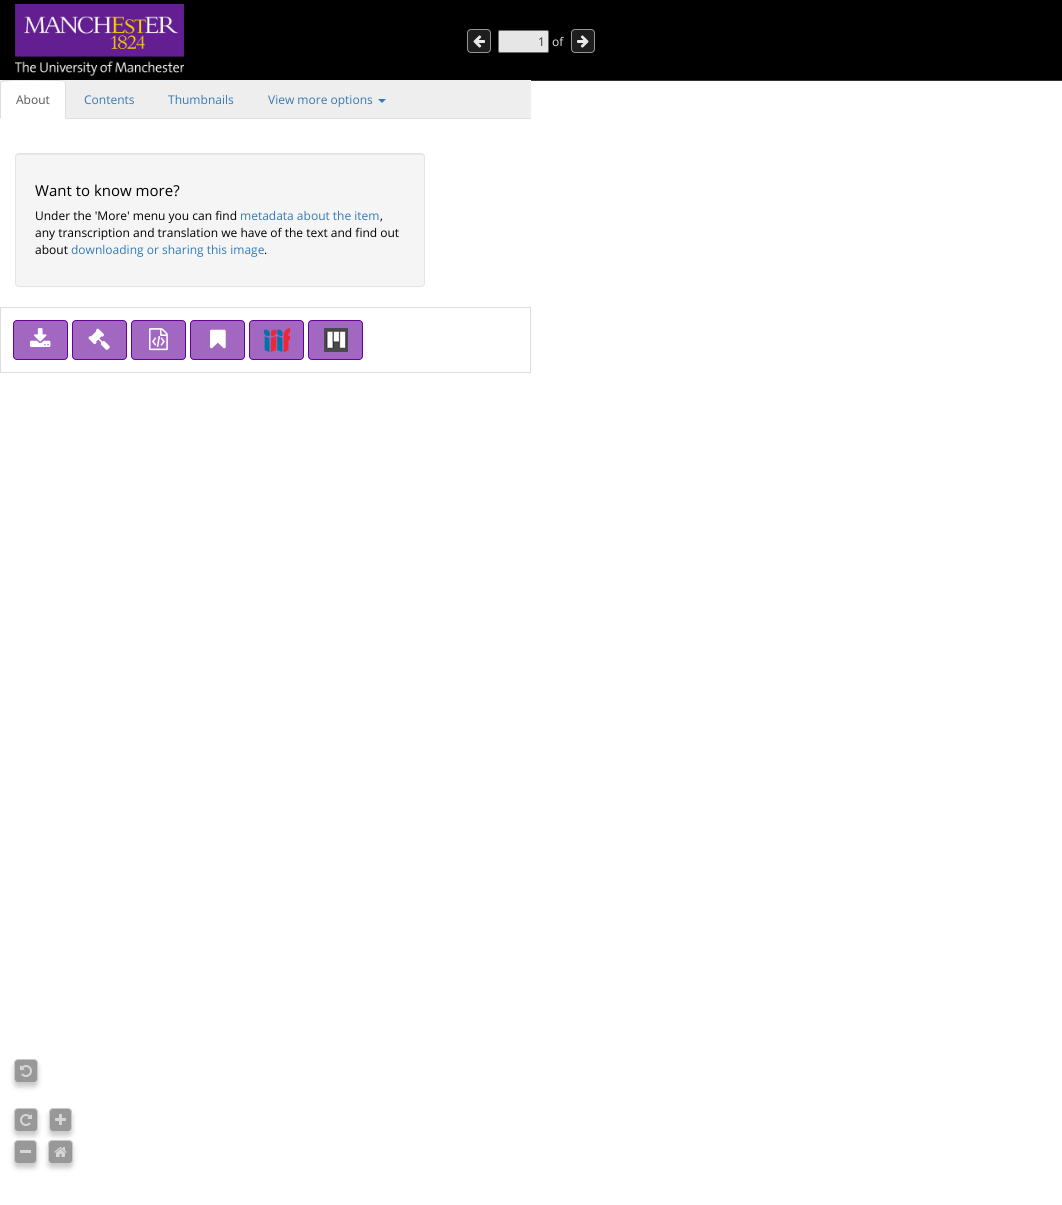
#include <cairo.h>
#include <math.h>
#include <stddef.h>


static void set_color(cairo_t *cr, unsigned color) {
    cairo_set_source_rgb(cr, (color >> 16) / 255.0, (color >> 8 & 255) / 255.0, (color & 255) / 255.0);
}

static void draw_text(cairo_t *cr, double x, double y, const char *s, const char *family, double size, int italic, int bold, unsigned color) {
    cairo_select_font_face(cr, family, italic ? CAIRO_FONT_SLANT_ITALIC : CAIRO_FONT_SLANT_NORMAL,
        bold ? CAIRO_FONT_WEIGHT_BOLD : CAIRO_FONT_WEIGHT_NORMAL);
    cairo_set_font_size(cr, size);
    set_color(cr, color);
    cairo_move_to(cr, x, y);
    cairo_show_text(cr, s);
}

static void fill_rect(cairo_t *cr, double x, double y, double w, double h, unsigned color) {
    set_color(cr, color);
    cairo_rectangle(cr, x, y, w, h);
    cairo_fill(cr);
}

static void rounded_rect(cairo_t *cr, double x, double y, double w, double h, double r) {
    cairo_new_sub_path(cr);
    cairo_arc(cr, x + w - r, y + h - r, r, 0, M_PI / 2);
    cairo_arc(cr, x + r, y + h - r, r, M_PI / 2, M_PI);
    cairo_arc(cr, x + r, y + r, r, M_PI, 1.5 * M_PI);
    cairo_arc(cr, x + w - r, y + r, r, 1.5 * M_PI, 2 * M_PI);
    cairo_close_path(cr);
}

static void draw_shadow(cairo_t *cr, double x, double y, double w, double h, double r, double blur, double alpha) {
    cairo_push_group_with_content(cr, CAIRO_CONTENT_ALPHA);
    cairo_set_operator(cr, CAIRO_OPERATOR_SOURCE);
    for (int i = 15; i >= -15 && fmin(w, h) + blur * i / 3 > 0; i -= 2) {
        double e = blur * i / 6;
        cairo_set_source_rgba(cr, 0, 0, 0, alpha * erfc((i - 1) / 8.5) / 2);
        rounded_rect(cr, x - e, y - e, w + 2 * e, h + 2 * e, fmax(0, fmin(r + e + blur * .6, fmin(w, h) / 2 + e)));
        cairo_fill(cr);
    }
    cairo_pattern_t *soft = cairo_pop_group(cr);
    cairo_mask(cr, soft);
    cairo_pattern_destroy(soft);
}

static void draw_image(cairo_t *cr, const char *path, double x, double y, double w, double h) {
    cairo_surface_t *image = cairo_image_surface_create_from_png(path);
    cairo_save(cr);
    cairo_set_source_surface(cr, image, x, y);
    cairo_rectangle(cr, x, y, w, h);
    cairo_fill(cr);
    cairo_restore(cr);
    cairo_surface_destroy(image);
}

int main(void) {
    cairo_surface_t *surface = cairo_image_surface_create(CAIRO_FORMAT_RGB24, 1062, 1205);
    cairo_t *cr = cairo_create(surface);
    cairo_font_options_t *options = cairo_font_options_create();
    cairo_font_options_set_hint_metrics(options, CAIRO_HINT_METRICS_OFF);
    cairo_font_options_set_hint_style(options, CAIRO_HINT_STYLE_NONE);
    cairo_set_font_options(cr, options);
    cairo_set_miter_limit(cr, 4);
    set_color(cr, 0xFFFFFF);
    cairo_paint(cr);
    fill_rect(cr, 0, 0, 1062, 80, 0x000000);
    fill_rect(cr, 531, 80, 531, 1, 0x333333);
    draw_image(cr, "assets/img1.png", 15, 4, 169, 72);
    set_color(cr, 0x1E1E1E);
    rounded_rect(cr, 467.5, 29.5, 23, 23, 3.5);
    cairo_fill_preserve(cr);
    set_color(cr, 0x969696);
    cairo_set_line_width(cr, 1);
    cairo_stroke(cr);
    draw_image(cr, "assets/img2.png", 473, 35, 12, 13);
    set_color(cr, 0xE6E6E6);
    rounded_rect(cr, 498.5, 30.5, 50, 22, 1.5);
    cairo_fill_preserve(cr);
    set_color(cr, 0x6A6A6A);
    cairo_stroke(cr);
    draw_text(cr, 538, 46, "1", "Open Sans", 12, 0, 0, 0x2E2E2E);
    draw_text(cr, 552, 46, "of", "Open Sans", 12, 0, 0, 0xE6E6E6);
    set_color(cr, 0x1E1E1E);
    rounded_rect(cr, 571.5, 29.5, 23, 23, 3.5);
    cairo_fill_preserve(cr);
    set_color(cr, 0x969696);
    cairo_stroke(cr);
    draw_image(cr, "assets/img3.png", 577, 35, 12, 13);
    fill_rect(cr, 0, 80, 531, 38, 0xEEEEEE);
    fill_rect(cr, 66, 118, 465, 1, 0xDDDDDD);
    set_color(cr, 0xFFFFFF);
    cairo_new_path(cr);
    cairo_move_to(cr, 4, 80);
    cairo_line_to(cr, 62, 80);
    cairo_curve_to(cr, 64, 80, 66, 82, 66, 84);
    cairo_line_to(cr, 66, 119);
    cairo_line_to(cr, 0, 119);
    cairo_line_to(cr, 0, 84);
    cairo_curve_to(cr, 0, 82, 2, 80, 4, 80);
    cairo_close_path(cr);
    cairo_fill(cr);
    set_color(cr, 0xDDDDDD);
    cairo_new_path(cr);
    cairo_move_to(cr, 4, 80);
    cairo_line_to(cr, 1, 81);
    cairo_line_to(cr, 2, 82);
    cairo_curve_to(cr, 4, 80, 47, 81, 52, 81);
    cairo_line_to(cr, 62, 81);
    cairo_line_to(cr, 64, 82);
    cairo_line_to(cr, 65, 81);
    cairo_line_to(cr, 62, 80);
    cairo_close_path(cr);
    cairo_fill(cr);
    cairo_new_path(cr);
    cairo_move_to(cr, 66, 119);
    cairo_line_to(cr, 66, 84);
    cairo_curve_to(cr, 66, 83, 65.5, 82, 65, 81);
    cairo_line_to(cr, 64, 82);
    cairo_curve_to(cr, 65, 82, 65, 83, 65, 84);
    cairo_line_to(cr, 65, 118);
    cairo_close_path(cr);
    cairo_fill(cr);
    cairo_new_path(cr);
    cairo_move_to(cr, 0, 119);
    cairo_line_to(cr, 1, 118);
    cairo_line_to(cr, 1, 84);
    cairo_curve_to(cr, 1, 83, 1, 82, 2, 82);
    cairo_line_to(cr, 1, 81);
    cairo_curve_to(cr, 0.5, 82, 0, 83, 0, 84);
    cairo_close_path(cr);
    cairo_fill(cr);
    draw_text(cr, 16, 104, "About", "Open Sans", 12, 0, 0, 0x555555);
    draw_text(cr, 84, 104, "Contents", "Open Sans", 12, 0, 0, 0x337AB7);
    draw_text(cr, 168, 104, "Thumbnails", "Open Sans", 12, 0, 0, 0x337AB7);
    draw_text(cr, 268, 104, "View more options", "Open Sans", 12, 0, 0, 0x337AB7);
    cairo_new_path(cr);
    cairo_move_to(cr, 378, 99);
    cairo_line_to(cr, 386, 99);
    cairo_line_to(cr, 382, 103);
    cairo_close_path(cr);
    cairo_fill(cr);
    set_color(cr, 0xF5F5F5);
    rounded_rect(cr, 15, 153, 410, 134, 4);
    cairo_fill(cr);
    set_color(cr, 0xE9E9E9);
    cairo_new_path(cr);
    cairo_move_to(cr, 19, 155);
    cairo_line_to(cr, 421, 155);
    cairo_curve_to(cr, 423, 155, 424, 156, 424, 158);
    cairo_curve_to(cr, 424, 156, 423, 154, 421, 154);
    cairo_line_to(cr, 19, 154);
    cairo_curve_to(cr, 17, 154, 16, 156, 16, 158);
    cairo_curve_to(cr, 16, 156, 17, 155, 19, 155);
    cairo_close_path(cr);
    cairo_fill(cr);
    rounded_rect(cr, 15.5, 153.5, 409, 133, 3.5);
    set_color(cr, 0xE3E3E3);
    cairo_stroke(cr);
    draw_text(cr, 35, 196, "Want to know more?", "Open Sans", 15, 0, 0, 0x000000);
    draw_text(cr, 35, 220, "Under the 'More' menu you can find", "Open Sans", 12, 0, 0, 0x000000);
    draw_text(cr, 240, 220, "metadata about the item", "Open Sans", 12, 0, 0, 0x337AB7);
    draw_text(cr, 380, 220, ",", "Open Sans", 12, 0, 0, 0x000000);
    draw_text(cr, 35, 237, "any transcription and translation we have of the text and find out", "Open Sans", 12, 0, 0, 0x000000);
    draw_text(cr, 35, 254, "about", "Open Sans", 12, 0, 0, 0x000000);
    draw_text(cr, 71, 254, "downloading or sharing this image", "Open Sans", 12, 0, 0, 0x337AB7);
    draw_text(cr, 264, 254, ".", "Open Sans", 12, 0, 0, 0x000000);
    cairo_rectangle(cr, 0.5, 307.5, 530, 65);
    set_color(cr, 0xDDDDDD);
    cairo_stroke(cr);
    set_color(cr, 0xA268C1);
    rounded_rect(cr, 13.5, 320.5, 54, 39, 3.5);
    cairo_fill_preserve(cr);
    set_color(cr, 0x660099);
    cairo_stroke(cr);
    draw_image(cr, "assets/img4.png", 30, 328, 21, 19);
    set_color(cr, 0xA268C1);
    rounded_rect(cr, 72.5, 320.5, 54, 39, 3.5);
    cairo_fill_preserve(cr);
    set_color(cr, 0x660099);
    cairo_stroke(cr);
    draw_image(cr, "assets/img5.png", 88, 328, 22, 22);
    set_color(cr, 0xA268C1);
    rounded_rect(cr, 131.5, 320.5, 54, 39, 3.5);
    cairo_fill_preserve(cr);
    set_color(cr, 0x660099);
    cairo_stroke(cr);
    draw_image(cr, "assets/img6.png", 149, 328, 19, 23);
    set_color(cr, 0xA268C1);
    rounded_rect(cr, 190.5, 320.5, 54, 39, 3.5);
    cairo_fill_preserve(cr);
    set_color(cr, 0x660099);
    cairo_stroke(cr);
    draw_image(cr, "assets/img7.png", 210, 329, 16, 20);
    set_color(cr, 0xA268C1);
    rounded_rect(cr, 249.5, 320.5, 54, 39, 3.5);
    cairo_fill_preserve(cr);
    set_color(cr, 0x660099);
    cairo_stroke(cr);
    draw_image(cr, "assets/img8.png", 263, 328, 27, 24);
    set_color(cr, 0xA268C1);
    rounded_rect(cr, 308.5, 320.5, 54, 39, 3.5);
    cairo_fill_preserve(cr);
    set_color(cr, 0x660099);
    cairo_stroke(cr);
    draw_image(cr, "assets/img9.png", 324, 328, 24, 24);
    cairo_save(cr);
    cairo_set_fill_rule(cr, CAIRO_FILL_RULE_EVEN_ODD);
    cairo_new_path(cr);
    cairo_move_to(cr, 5, 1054);
    cairo_line_to(cr, 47, 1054);
    cairo_line_to(cr, 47, 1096);
    cairo_line_to(cr, 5, 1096);
    cairo_close_path(cr);
    cairo_move_to(cr, 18, 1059);
    cairo_line_to(cr, 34, 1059);
    cairo_curve_to(cr, 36, 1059, 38, 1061, 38, 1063);
    cairo_line_to(cr, 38, 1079);
    cairo_curve_to(cr, 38, 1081, 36, 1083, 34, 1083);
    cairo_line_to(cr, 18, 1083);
    cairo_curve_to(cr, 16, 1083, 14, 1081, 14, 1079);
    cairo_line_to(cr, 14, 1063);
    cairo_curve_to(cr, 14, 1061, 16, 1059, 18, 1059);
    cairo_close_path(cr);
    cairo_clip(cr);
    set_color(cr, 0x666666);
    draw_shadow(cr, 14, 1063, 24, 24, 4, 2.5, 0.35);
    cairo_restore(cr);
    cairo_set_source_rgba(cr, 0.498, 0.498, 0.498, 0.8);
    rounded_rect(cr, 14.5, 1059.5, 23, 23, 3.5);
    cairo_fill_preserve(cr);
    set_color(cr, 0xCACACA);
    cairo_stroke(cr);
    draw_image(cr, "assets/img10.png", 20, 1065, 12, 12);
    cairo_save(cr);
    cairo_set_fill_rule(cr, CAIRO_FILL_RULE_EVEN_ODD);
    cairo_new_path(cr);
    cairo_move_to(cr, 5, 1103);
    cairo_line_to(cr, 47, 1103);
    cairo_line_to(cr, 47, 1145);
    cairo_line_to(cr, 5, 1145);
    cairo_close_path(cr);
    cairo_move_to(cr, 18, 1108);
    cairo_line_to(cr, 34, 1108);
    cairo_curve_to(cr, 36, 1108, 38, 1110, 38, 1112);
    cairo_line_to(cr, 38, 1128);
    cairo_curve_to(cr, 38, 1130, 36, 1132, 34, 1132);
    cairo_line_to(cr, 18, 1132);
    cairo_curve_to(cr, 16, 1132, 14, 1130, 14, 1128);
    cairo_line_to(cr, 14, 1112);
    cairo_curve_to(cr, 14, 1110, 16, 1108, 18, 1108);
    cairo_close_path(cr);
    cairo_clip(cr);
    set_color(cr, 0x666666);
    draw_shadow(cr, 14, 1112, 24, 24, 4, 2.5, 0.35);
    cairo_restore(cr);
    cairo_set_source_rgba(cr, 0.498, 0.498, 0.498, 0.8);
    rounded_rect(cr, 14.5, 1108.5, 23, 23, 3.5);
    cairo_fill_preserve(cr);
    set_color(cr, 0xCACACA);
    cairo_stroke(cr);
    draw_image(cr, "assets/img11.png", 20, 1114, 12, 12);
    cairo_save(cr);
    cairo_set_fill_rule(cr, CAIRO_FILL_RULE_EVEN_ODD);
    cairo_new_path(cr);
    cairo_move_to(cr, 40, 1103);
    cairo_line_to(cr, 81, 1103);
    cairo_line_to(cr, 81, 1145);
    cairo_line_to(cr, 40, 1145);
    cairo_close_path(cr);
    cairo_move_to(cr, 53, 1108);
    cairo_line_to(cr, 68, 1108);
    cairo_curve_to(cr, 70, 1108, 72, 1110, 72, 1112);
    cairo_line_to(cr, 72, 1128);
    cairo_curve_to(cr, 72, 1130, 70, 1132, 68, 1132);
    cairo_line_to(cr, 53, 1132);
    cairo_curve_to(cr, 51, 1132, 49, 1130, 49, 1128);
    cairo_line_to(cr, 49, 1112);
    cairo_curve_to(cr, 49, 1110, 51, 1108, 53, 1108);
    cairo_close_path(cr);
    cairo_clip(cr);
    set_color(cr, 0x666666);
    draw_shadow(cr, 49, 1112, 23, 24, 4, 2.5, 0.35);
    cairo_restore(cr);
    cairo_set_source_rgba(cr, 0.498, 0.498, 0.498, 0.8);
    rounded_rect(cr, 49.5, 1108.5, 22, 23, 3.5);
    cairo_fill_preserve(cr);
    set_color(cr, 0xCACACA);
    cairo_stroke(cr);
    draw_image(cr, "assets/img12.png", 55, 1114, 11, 11);
    cairo_save(cr);
    cairo_set_fill_rule(cr, CAIRO_FILL_RULE_EVEN_ODD);
    cairo_new_path(cr);
    cairo_move_to(cr, 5, 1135);
    cairo_line_to(cr, 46, 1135);
    cairo_line_to(cr, 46, 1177);
    cairo_line_to(cr, 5, 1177);
    cairo_close_path(cr);
    cairo_move_to(cr, 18, 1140);
    cairo_line_to(cr, 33, 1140);
    cairo_curve_to(cr, 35, 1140, 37, 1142, 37, 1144);
    cairo_line_to(cr, 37, 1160);
    cairo_curve_to(cr, 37, 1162, 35, 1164, 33, 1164);
    cairo_line_to(cr, 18, 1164);
    cairo_curve_to(cr, 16, 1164, 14, 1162, 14, 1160);
    cairo_line_to(cr, 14, 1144);
    cairo_curve_to(cr, 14, 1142, 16, 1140, 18, 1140);
    cairo_close_path(cr);
    cairo_clip(cr);
    set_color(cr, 0x666666);
    draw_shadow(cr, 14, 1144, 23, 24, 4, 2.5, 0.35);
    cairo_restore(cr);
    cairo_set_source_rgba(cr, 0.498, 0.498, 0.498, 0.8);
    rounded_rect(cr, 14.5, 1140.5, 22, 23, 3.5);
    cairo_fill_preserve(cr);
    set_color(cr, 0xCACACA);
    cairo_stroke(cr);
    fill_rect(cr, 20, 1150, 11, 3, 0xD6D6D6);
    cairo_save(cr);
    cairo_set_fill_rule(cr, CAIRO_FILL_RULE_EVEN_ODD);
    cairo_new_path(cr);
    cairo_move_to(cr, 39, 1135);
    cairo_line_to(cr, 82, 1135);
    cairo_line_to(cr, 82, 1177);
    cairo_line_to(cr, 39, 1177);
    cairo_close_path(cr);
    cairo_move_to(cr, 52, 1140);
    cairo_line_to(cr, 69, 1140);
    cairo_curve_to(cr, 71, 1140, 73, 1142, 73, 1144);
    cairo_line_to(cr, 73, 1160);
    cairo_curve_to(cr, 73, 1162, 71, 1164, 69, 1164);
    cairo_line_to(cr, 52, 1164);
    cairo_curve_to(cr, 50, 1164, 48, 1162, 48, 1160);
    cairo_line_to(cr, 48, 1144);
    cairo_curve_to(cr, 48, 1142, 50, 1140, 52, 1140);
    cairo_close_path(cr);
    cairo_clip(cr);
    set_color(cr, 0x666666);
    draw_shadow(cr, 48, 1144, 25, 24, 4, 2.5, 0.35);
    cairo_restore(cr);
    cairo_set_source_rgba(cr, 0.498, 0.498, 0.498, 0.8);
    rounded_rect(cr, 48.5, 1140.5, 24, 23, 3.5);
    cairo_fill_preserve(cr);
    set_color(cr, 0xCACACA);
    cairo_stroke(cr);
    draw_image(cr, "assets/img13.png", 54, 1147, 13, 10);
    cairo_surface_write_to_png(surface, "output.png");
    cairo_font_options_destroy(options);
    cairo_destroy(cr);
    cairo_surface_destroy(surface);
    return 0;
}
